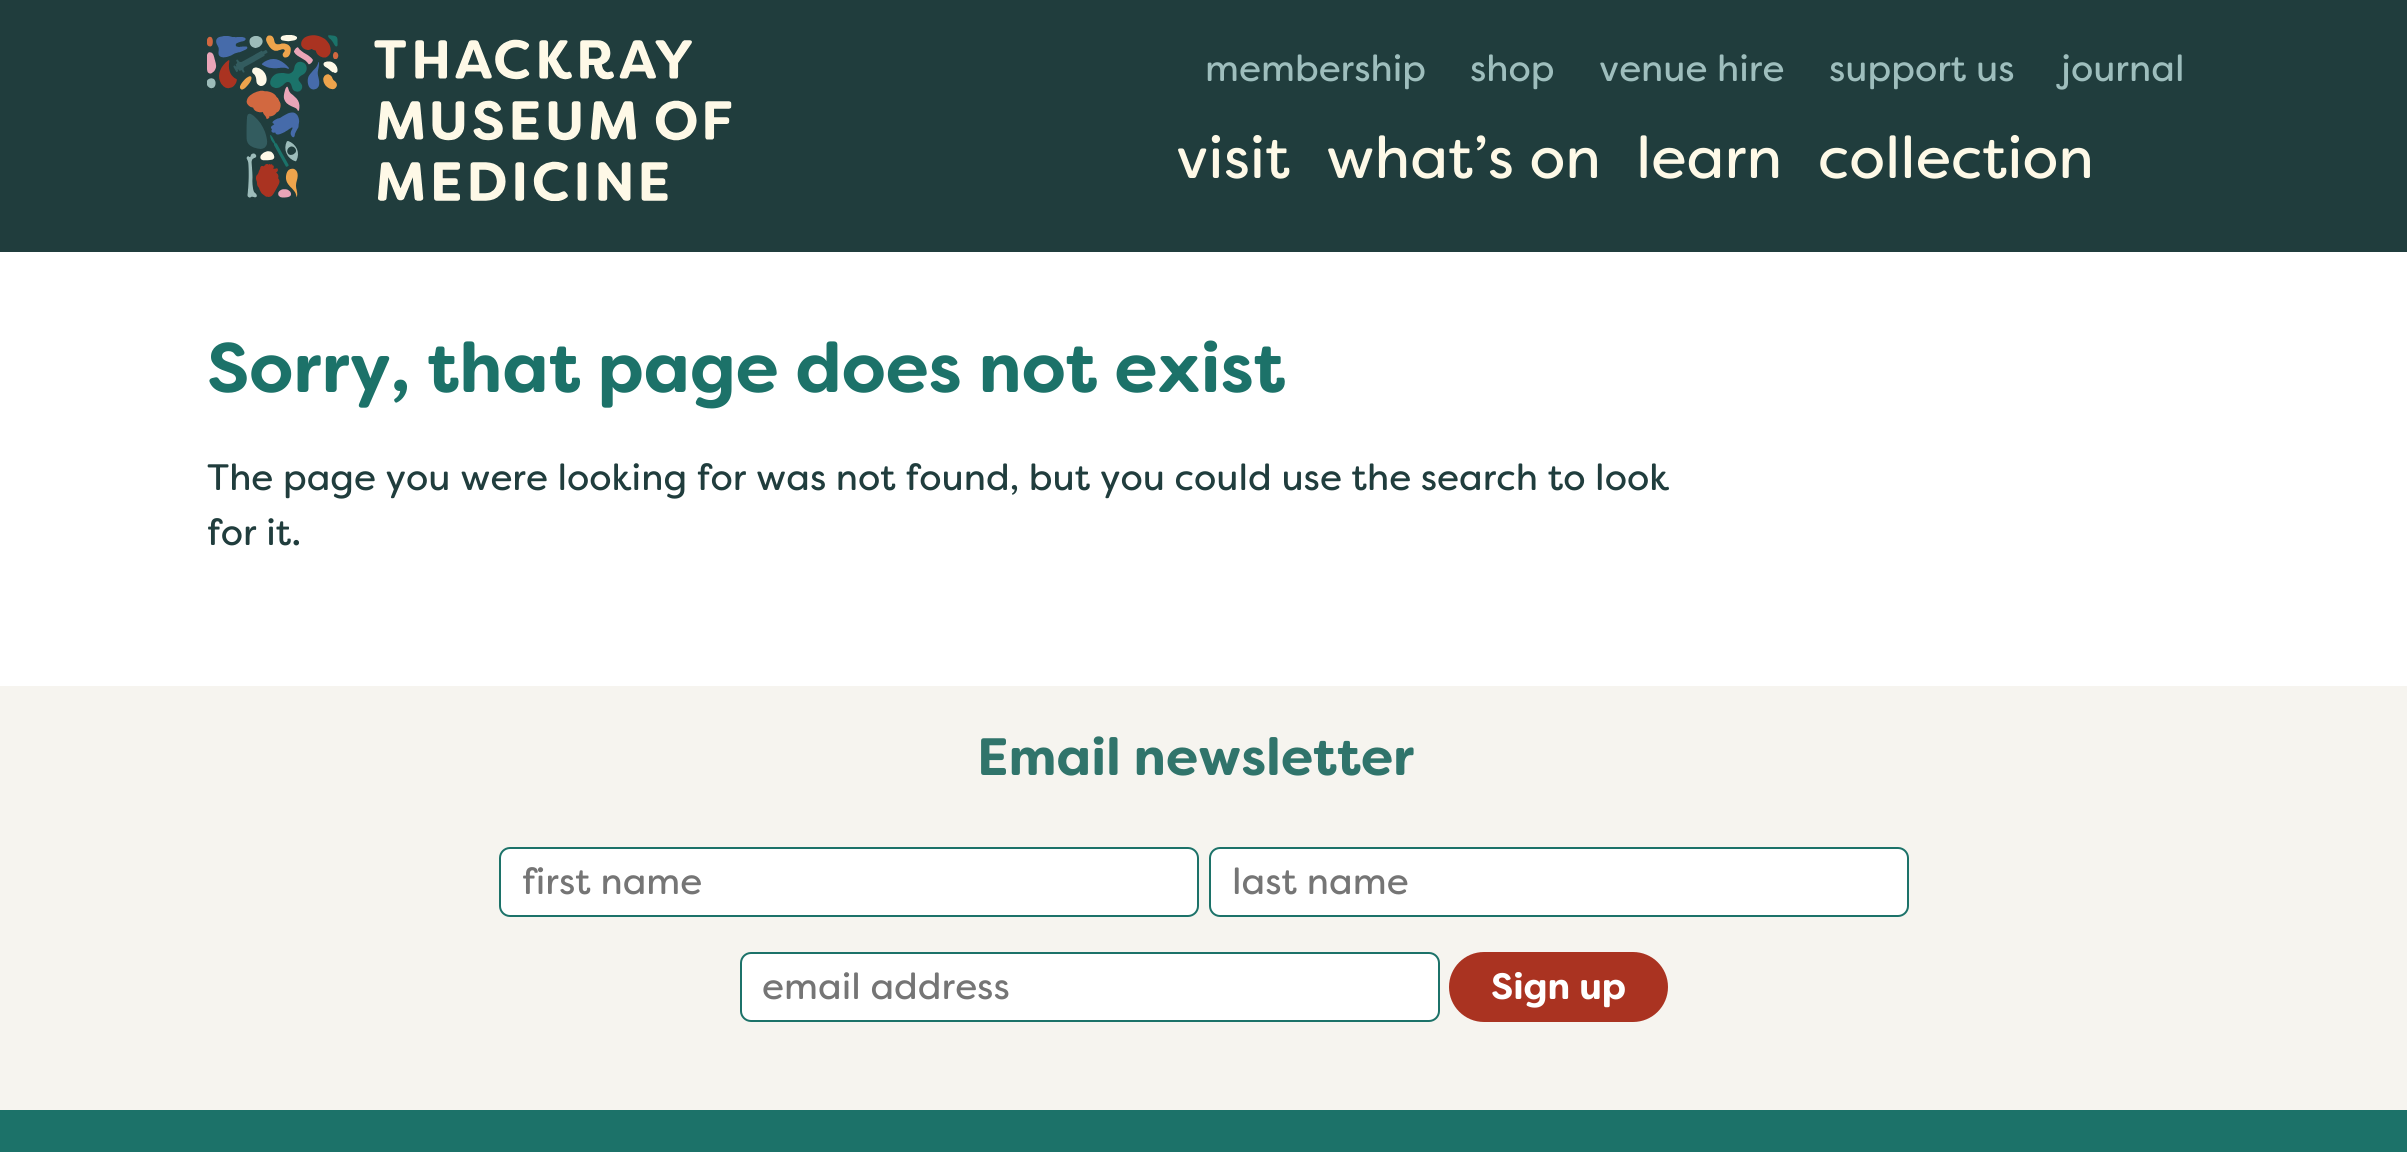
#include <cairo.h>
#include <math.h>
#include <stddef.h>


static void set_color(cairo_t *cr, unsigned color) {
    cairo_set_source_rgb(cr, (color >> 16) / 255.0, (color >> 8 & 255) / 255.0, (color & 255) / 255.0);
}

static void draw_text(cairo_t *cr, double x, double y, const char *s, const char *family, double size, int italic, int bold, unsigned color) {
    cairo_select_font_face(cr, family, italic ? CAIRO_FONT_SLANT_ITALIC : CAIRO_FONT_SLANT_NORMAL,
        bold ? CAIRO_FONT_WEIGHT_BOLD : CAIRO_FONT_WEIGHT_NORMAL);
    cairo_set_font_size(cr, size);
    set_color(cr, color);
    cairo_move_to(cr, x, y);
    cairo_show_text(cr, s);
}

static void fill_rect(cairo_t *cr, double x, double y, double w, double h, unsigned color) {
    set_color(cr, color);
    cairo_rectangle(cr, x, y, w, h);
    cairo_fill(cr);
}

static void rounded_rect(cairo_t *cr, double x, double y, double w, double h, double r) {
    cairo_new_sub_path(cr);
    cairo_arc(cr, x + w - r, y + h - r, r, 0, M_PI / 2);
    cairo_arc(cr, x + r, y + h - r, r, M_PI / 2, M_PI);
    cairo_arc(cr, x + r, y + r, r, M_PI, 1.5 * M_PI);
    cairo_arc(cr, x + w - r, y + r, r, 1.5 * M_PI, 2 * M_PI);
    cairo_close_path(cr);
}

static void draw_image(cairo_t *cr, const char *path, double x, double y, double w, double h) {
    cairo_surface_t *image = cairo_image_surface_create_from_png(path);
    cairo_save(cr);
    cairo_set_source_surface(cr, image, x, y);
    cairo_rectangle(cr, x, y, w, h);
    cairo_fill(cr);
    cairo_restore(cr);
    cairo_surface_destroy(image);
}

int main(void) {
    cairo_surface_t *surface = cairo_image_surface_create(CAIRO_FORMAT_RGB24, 2407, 1152);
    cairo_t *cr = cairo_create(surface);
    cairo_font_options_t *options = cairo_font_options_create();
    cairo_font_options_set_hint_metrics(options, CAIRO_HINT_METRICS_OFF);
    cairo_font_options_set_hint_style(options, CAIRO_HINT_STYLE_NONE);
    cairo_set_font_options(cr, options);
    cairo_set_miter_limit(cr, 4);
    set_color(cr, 0xFFFFFF);
    cairo_paint(cr);
    fill_rect(cr, 0, 0, 2407, 252, 0x203D3D);
    draw_image(cr, "assets/img1.png", 207, 35, 525, 166);
    draw_text(cr, 1205, 81, "membership", "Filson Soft", 36.75, 0, 0, 0x9EBEBD);
    draw_text(cr, 1470, 81, "shop", "Filson Soft", 36.75, 0, 0, 0x9EBEBD);
    draw_text(cr, 1599, 81, "venue hire", "Filson Soft", 36.75, 0, 0, 0x9EBEBD);
    draw_text(cr, 1829, 81, "support us", "Filson Soft", 36.75, 0, 0, 0x9EBEBD);
    draw_text(cr, 2060, 81, "journal", "Filson Soft", 36.75, 0, 0, 0x9EBEBD);
    draw_text(cr, 1176, 178, "visit", "Filson Soft", 59, 0, 0, 0xFEF9E7);
    draw_text(cr, 1326, 178, "what’s on", "Filson Soft", 59, 0, 0, 0xFEF9E7);
    draw_text(cr, 1636, 178, "learn", "Filson Soft", 59, 0, 0, 0xFEF9E7);
    draw_text(cr, 1818, 178, "collection", "Filson Soft", 59, 0, 0, 0xFEF9E7);
    draw_text(cr, 207, 392, "Sorry, that page does not exist", "Filson Soft", 70, 0, 1, 0x1C7269);
    draw_text(cr, 207, 490, "The page you were looking for was not found, but you could use the search to look", "Filson Soft", 36.75, 0, 0, 0x203D3D);
    draw_text(cr, 207, 545, "for it.", "Filson Soft", 36.75, 0, 0, 0x203D3D);
    fill_rect(cr, 0, 686, 2407, 424, 0xF6F4EF);
    draw_text(cr, 977, 775, "Email newsletter", "Filson Soft", 52.5, 0, 1, 0x30746B);
    set_color(cr, 0xFFFFFF);
    rounded_rect(cr, 500, 848, 698, 68, 10);
    cairo_fill_preserve(cr);
    set_color(cr, 0x1C7269);
    cairo_stroke(cr);
    draw_text(cr, 522, 894, "first name", "Filson Soft", 36.75, 0, 0, 0x757575);
    set_color(cr, 0xFFFFFF);
    rounded_rect(cr, 1210, 848, 698, 68, 10);
    cairo_fill_preserve(cr);
    set_color(cr, 0x1C7269);
    cairo_stroke(cr);
    draw_text(cr, 1232, 894, "last name", "Filson Soft", 36.75, 0, 0, 0x757575);
    set_color(cr, 0xFFFFFF);
    rounded_rect(cr, 741, 953, 698, 68, 10);
    cairo_fill_preserve(cr);
    set_color(cr, 0x1C7269);
    cairo_stroke(cr);
    draw_text(cr, 762, 999, "email address", "Filson Soft", 36.75, 0, 0, 0x757575);
    set_color(cr, 0xAA3321);
    rounded_rect(cr, 1449, 952, 219, 70, 35);
    cairo_fill(cr);
    draw_text(cr, 1491, 999, "Sign up", "Filson Soft", 36.75, 0, 1, 0xFFFFFF);
    fill_rect(cr, 0, 1110, 2407, 42, 0x1C7269);
    cairo_surface_write_to_png(surface, "output.png");
    cairo_font_options_destroy(options);
    cairo_destroy(cr);
    cairo_surface_destroy(surface);
    return 0;
}
